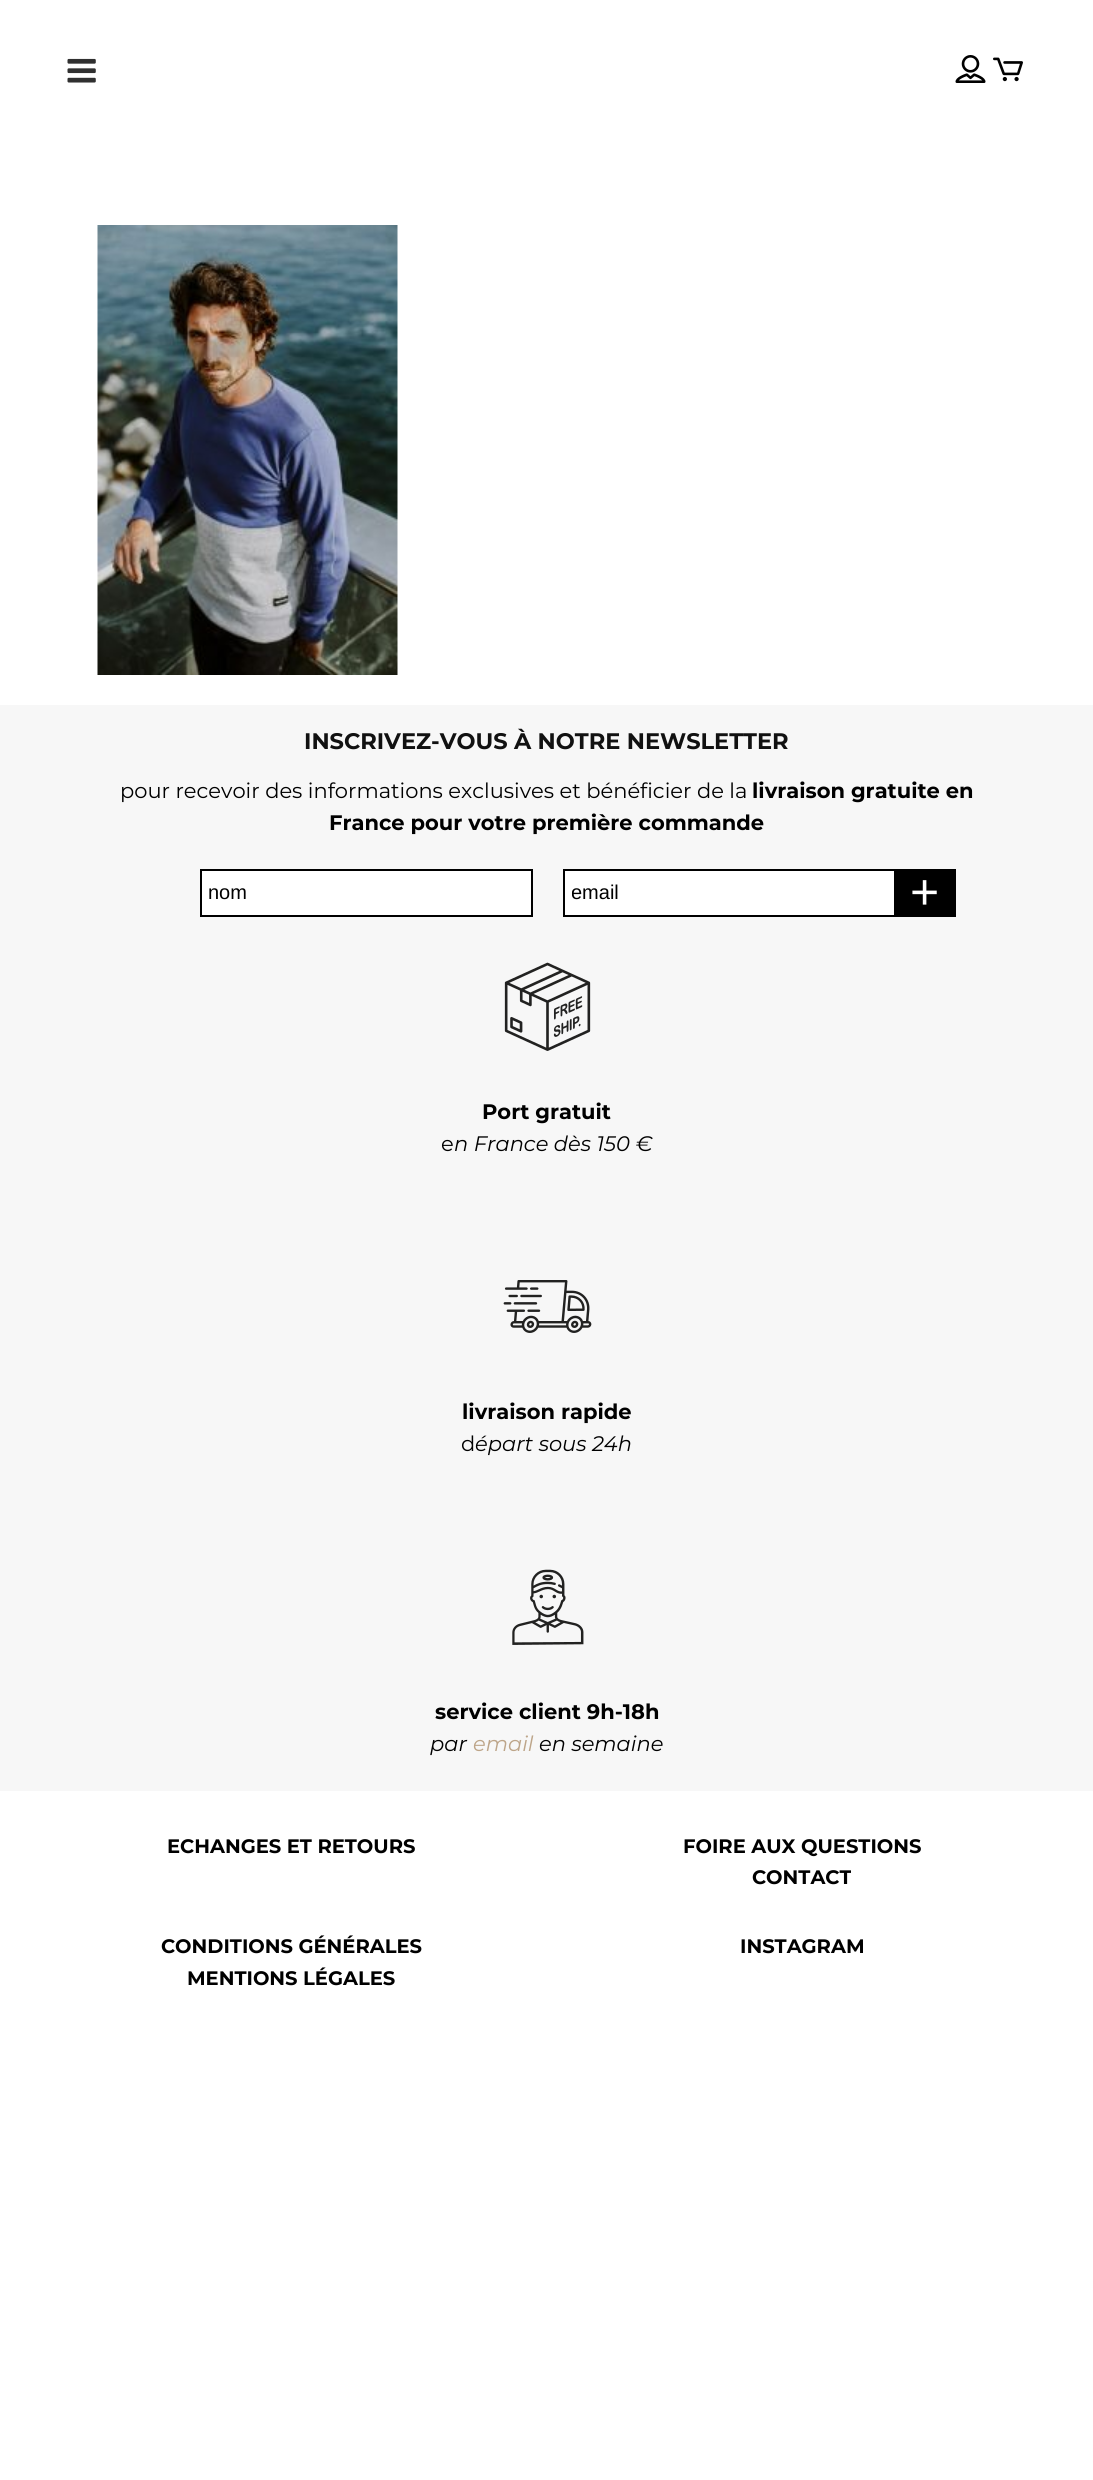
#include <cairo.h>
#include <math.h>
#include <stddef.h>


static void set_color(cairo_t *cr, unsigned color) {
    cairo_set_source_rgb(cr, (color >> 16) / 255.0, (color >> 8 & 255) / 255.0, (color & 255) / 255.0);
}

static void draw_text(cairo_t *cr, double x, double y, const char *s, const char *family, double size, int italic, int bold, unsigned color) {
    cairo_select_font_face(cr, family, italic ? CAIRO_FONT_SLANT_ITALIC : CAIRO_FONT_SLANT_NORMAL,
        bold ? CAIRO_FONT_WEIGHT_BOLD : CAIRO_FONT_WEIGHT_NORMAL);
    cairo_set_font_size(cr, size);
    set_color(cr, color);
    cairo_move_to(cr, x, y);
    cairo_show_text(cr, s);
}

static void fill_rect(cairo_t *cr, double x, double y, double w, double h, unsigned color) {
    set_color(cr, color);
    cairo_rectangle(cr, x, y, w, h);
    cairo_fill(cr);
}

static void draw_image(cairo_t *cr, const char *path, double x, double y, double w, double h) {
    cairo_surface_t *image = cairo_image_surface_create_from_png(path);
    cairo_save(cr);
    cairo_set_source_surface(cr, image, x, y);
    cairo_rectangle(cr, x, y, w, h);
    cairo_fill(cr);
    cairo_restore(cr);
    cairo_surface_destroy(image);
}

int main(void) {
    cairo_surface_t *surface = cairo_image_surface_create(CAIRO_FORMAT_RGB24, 1093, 2480);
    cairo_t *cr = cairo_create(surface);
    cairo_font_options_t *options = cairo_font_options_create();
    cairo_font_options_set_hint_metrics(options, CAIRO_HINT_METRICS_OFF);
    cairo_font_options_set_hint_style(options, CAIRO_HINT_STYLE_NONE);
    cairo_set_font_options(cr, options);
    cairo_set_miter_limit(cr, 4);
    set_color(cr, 0xFFFFFF);
    cairo_paint(cr);
    draw_image(cr, "assets/img1.png", 67, 58, 29, 25);
    draw_image(cr, "assets/img2.png", 955, 55, 31, 28);
    draw_image(cr, "assets/img3.png", 993, 57, 30, 25);
    draw_image(cr, "assets/img4.png", 97, 225, 301, 450);
    fill_rect(cr, 0, 705, 1093, 1086, 0xF7F7F7);
    draw_text(cr, 304, 749, "INSCRIVEZ-VOUS À NOTRE NEWSLETTER", "Montserrat", 22.5, 0, 1, 0x111111);
    draw_text(cr, 120, 798, "pour recevoir des informations exclusives et bénéficier de la", "Montserrat", 21, 0, 0, 0x000000);
    draw_text(cr, 752, 798, "livraison gratuite en", "Montserrat", 21, 0, 1, 0x000000);
    draw_text(cr, 329, 830, "France pour votre première commande", "Montserrat", 21, 0, 1, 0x000000);
    set_color(cr, 0xFFFFFF);
    cairo_rectangle(cr, 201, 870, 331, 46);
    cairo_fill_preserve(cr);
    set_color(cr, 0x000000);
    cairo_stroke(cr);
    draw_text(cr, 208, 899, "nom", "Liberation Sans", 20, 0, 0, 0x000000);
    set_color(cr, 0xFFFFFF);
    cairo_rectangle(cr, 564, 870, 331, 46);
    cairo_fill_preserve(cr);
    set_color(cr, 0x000000);
    cairo_stroke(cr);
    cairo_save(cr);
    cairo_rectangle(cr, 572, 882, 315, 23);
    cairo_clip(cr);
    draw_text(cr, 571, 899, "email", "Liberation Sans", 20, 0, 0, 0x000000);
    cairo_restore(cr);
    fill_rect(cr, 896, 869, 60, 48, 0x000000);
    draw_text(cr, 910, 909, "+", "Liberation Sans", 50, 0, 0, 0xFFFFFF);
    draw_image(cr, "assets/img5.png", 504, 962, 87, 89);
    draw_text(cr, 482, 1119, "Port gratuit", "Montserrat", 21, 0, 1, 0x000000);
    draw_text(cr, 441, 1151, "e", "Montserrat", 21, 0, 0, 0x000000);
    draw_text(cr, 454, 1151, "n France dès 150 €", "Montserrat", 21, 1, 0, 0x000000);
    draw_image(cr, "assets/img6.png", 503, 1280, 89, 53);
    draw_text(cr, 462, 1419, "livraison rapide", "Montserrat", 21, 0, 1, 0x000000);
    draw_text(cr, 461, 1451, "d", "Montserrat", 21, 0, 0, 0x000000);
    draw_text(cr, 475, 1451, "épart sous 24h", "Montserrat", 21, 1, 0, 0x000000);
    draw_image(cr, "assets/img7.png", 512, 1569, 72, 76);
    draw_text(cr, 435, 1719, "service client 9h-18h", "Montserrat", 21, 0, 1, 0x000000);
    draw_text(cr, 430, 1751, "par", "Montserrat", 21, 1, 0, 0x000000);
    draw_text(cr, 473, 1751, "email", "Montserrat", 21, 1, 0, 0xBDA589);
    draw_text(cr, 539, 1751, "en semaine", "Montserrat", 21, 1, 0, 0x000000);
    draw_text(cr, 167, 1853, "ECHANGES ET RETOURS", "Montserrat", 19.5, 0, 1, 0x000000);
    draw_text(cr, 683, 1853, "FOIRE AUX QUESTIONS", "Montserrat", 19.5, 0, 1, 0x000000);
    draw_text(cr, 752, 1884, "CONTACT", "Montserrat", 19.5, 0, 1, 0x000000);
    draw_text(cr, 161, 1953, "CONDITIONS GÉNÉRALES", "Montserrat", 19.5, 0, 1, 0x000000);
    draw_text(cr, 187, 1985, "MENTIONS LÉGALES", "Montserrat", 19.5, 0, 1, 0x000000);
    draw_text(cr, 740, 1953, "INSTAGRAM", "Montserrat", 19.5, 0, 1, 0x000000);
    cairo_surface_write_to_png(surface, "output.png");
    cairo_font_options_destroy(options);
    cairo_destroy(cr);
    cairo_surface_destroy(surface);
    return 0;
}
